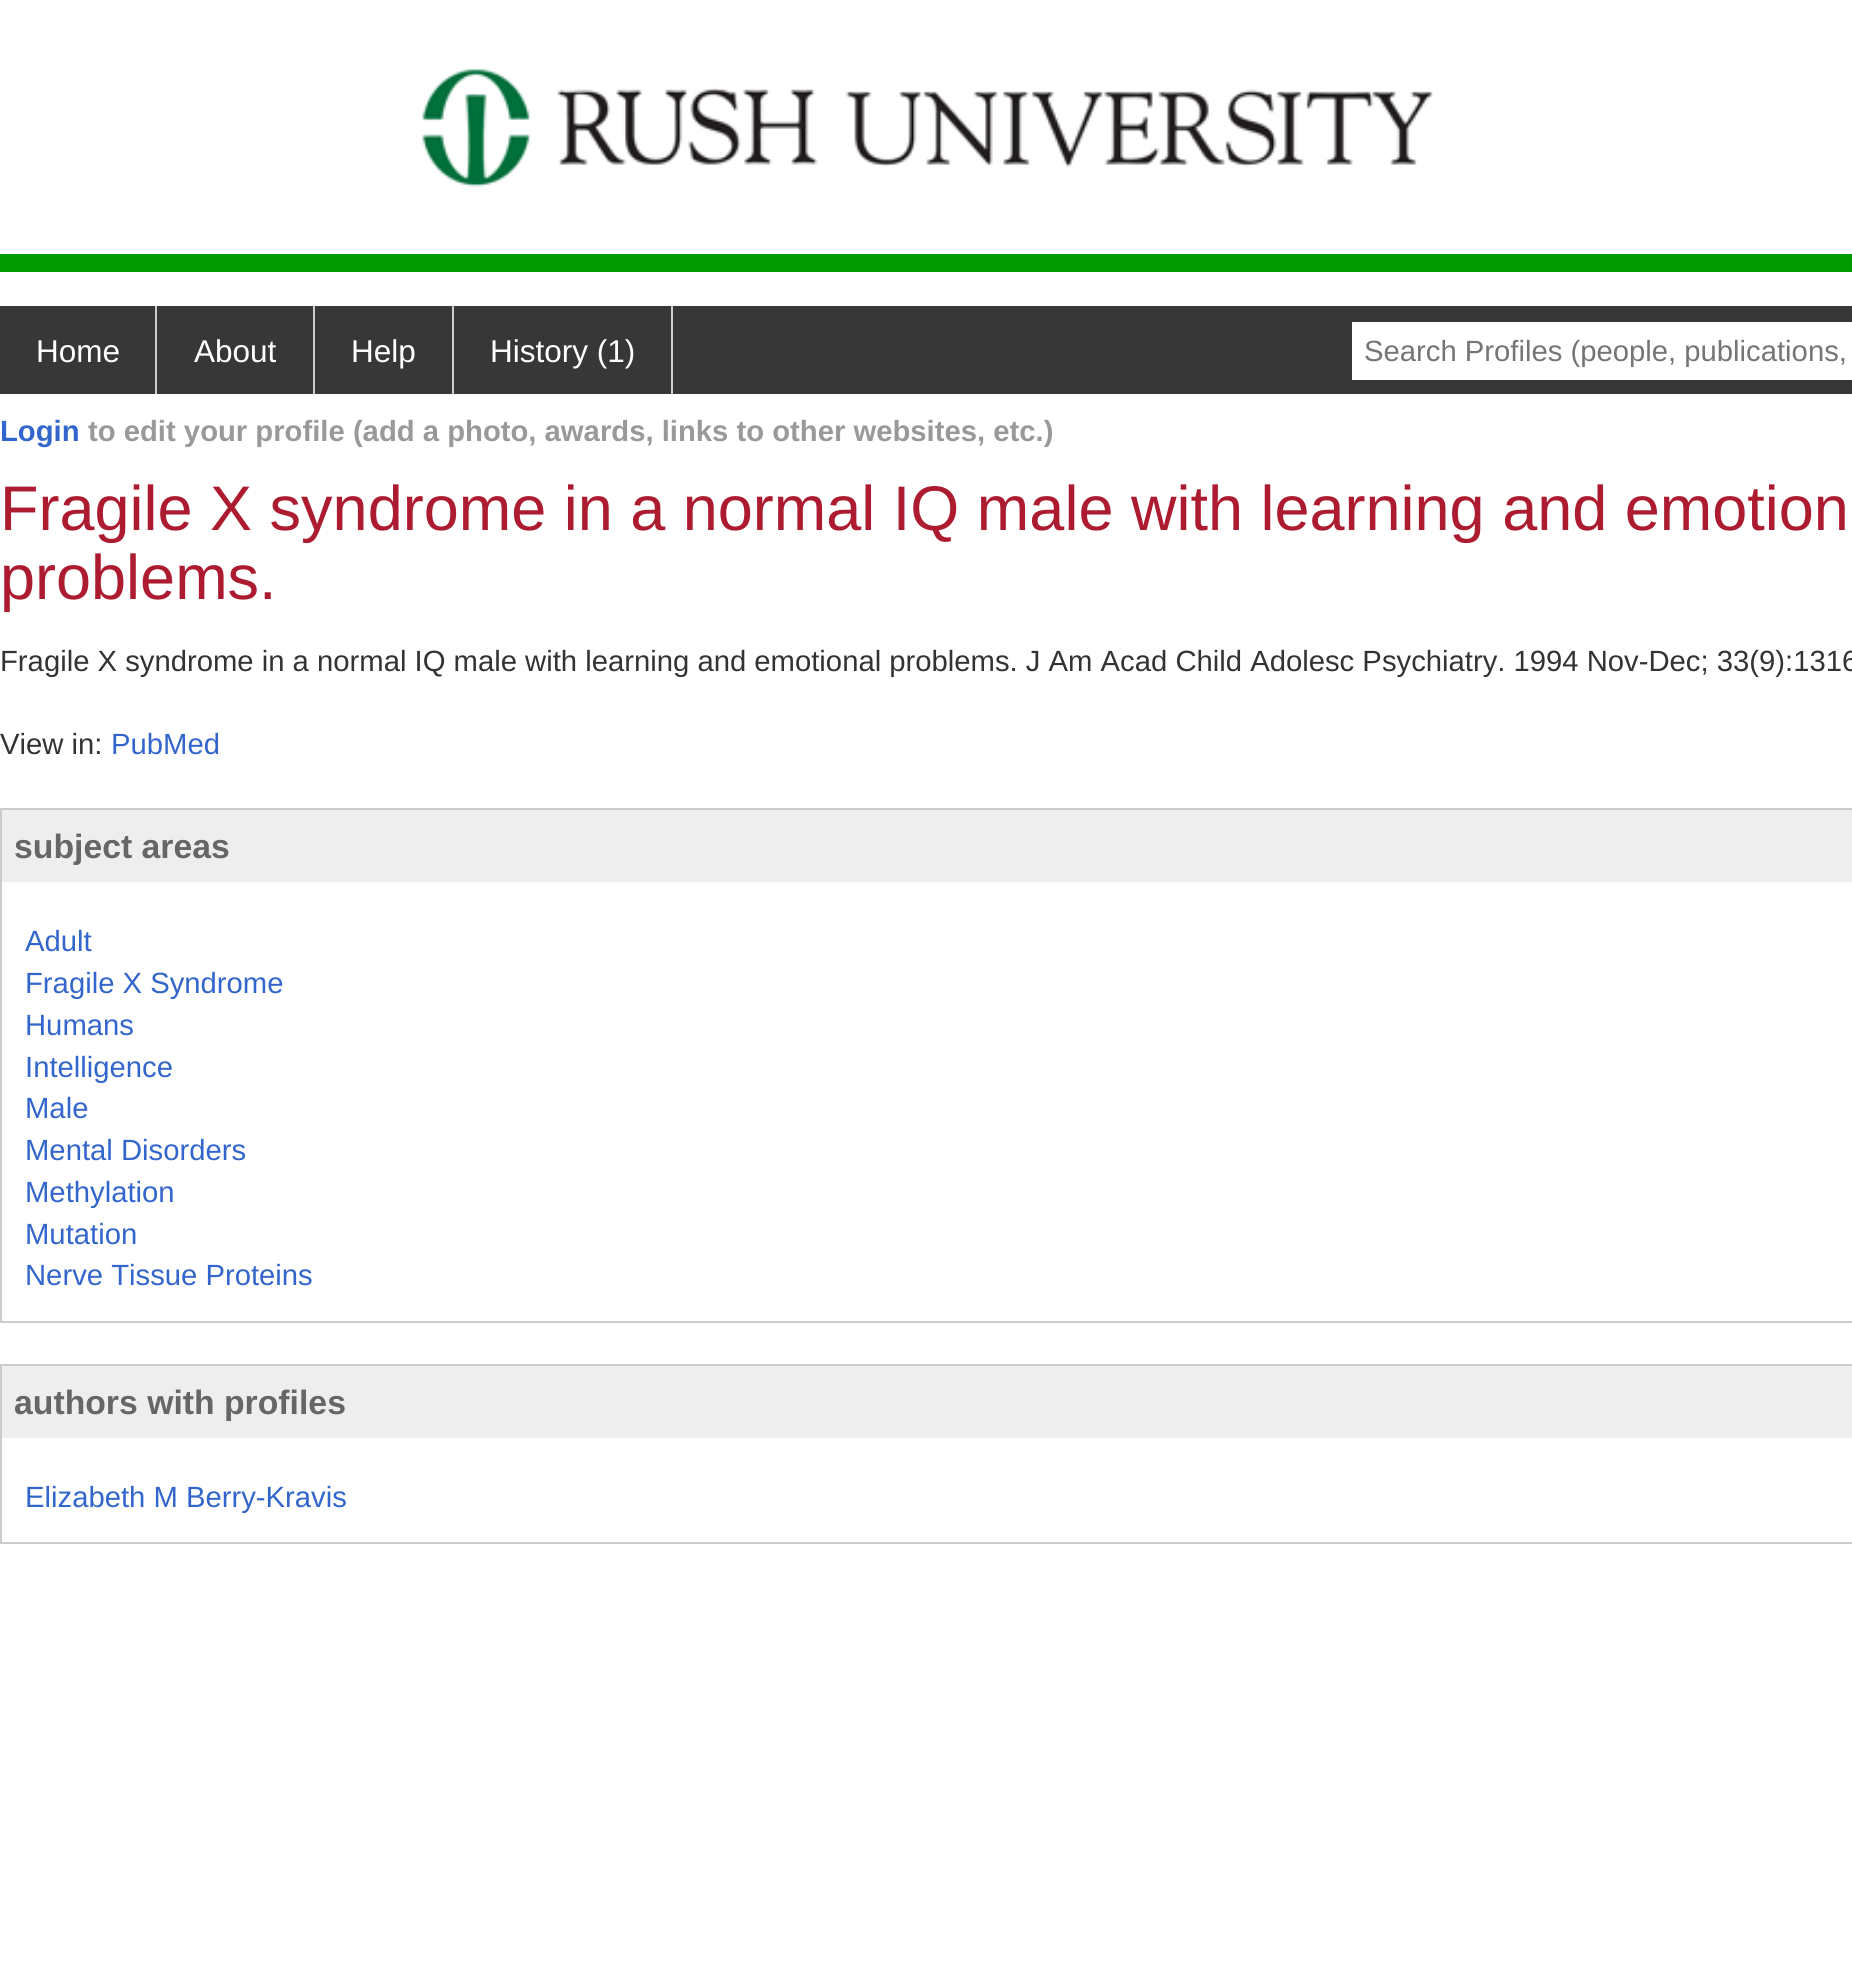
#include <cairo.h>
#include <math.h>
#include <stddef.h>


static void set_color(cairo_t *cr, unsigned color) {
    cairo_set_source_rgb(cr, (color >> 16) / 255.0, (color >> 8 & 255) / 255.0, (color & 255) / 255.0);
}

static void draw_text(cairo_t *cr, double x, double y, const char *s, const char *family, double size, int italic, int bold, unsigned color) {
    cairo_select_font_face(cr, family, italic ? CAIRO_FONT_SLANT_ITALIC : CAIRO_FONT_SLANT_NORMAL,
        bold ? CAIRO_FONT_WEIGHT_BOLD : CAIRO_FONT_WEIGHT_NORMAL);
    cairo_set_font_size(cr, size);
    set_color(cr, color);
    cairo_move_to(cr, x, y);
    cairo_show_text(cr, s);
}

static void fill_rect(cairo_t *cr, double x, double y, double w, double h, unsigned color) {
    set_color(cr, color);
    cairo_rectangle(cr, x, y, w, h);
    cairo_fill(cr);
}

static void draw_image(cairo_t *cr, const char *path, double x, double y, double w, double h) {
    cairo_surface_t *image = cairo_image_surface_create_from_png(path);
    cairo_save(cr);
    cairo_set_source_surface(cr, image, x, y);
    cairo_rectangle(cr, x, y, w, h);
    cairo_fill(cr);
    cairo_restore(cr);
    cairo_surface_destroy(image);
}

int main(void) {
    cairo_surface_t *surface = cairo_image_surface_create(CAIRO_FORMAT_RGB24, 1852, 1983);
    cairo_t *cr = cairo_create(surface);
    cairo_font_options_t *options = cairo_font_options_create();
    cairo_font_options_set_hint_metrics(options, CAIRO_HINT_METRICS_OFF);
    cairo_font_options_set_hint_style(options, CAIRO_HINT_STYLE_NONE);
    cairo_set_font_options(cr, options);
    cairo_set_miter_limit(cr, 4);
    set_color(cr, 0xFFFFFF);
    cairo_paint(cr);
    fill_rect(cr, 0, 254, 1852, 18, 0x009900);
    draw_image(cr, "assets/img1.png", 422, 69, 1012, 118);
    fill_rect(cr, 0, 306, 1852, 88, 0x383737);
    fill_rect(cr, 155, 306, 2, 88, 0xCCCCCC);
    draw_text(cr, 36, 362, "Home", "Liberation Sans", 31.5, 0, 0, 0xFFFFFF);
    fill_rect(cr, 313, 306, 2, 88, 0xCCCCCC);
    draw_text(cr, 194, 362, "About", "Liberation Sans", 31.5, 0, 0, 0xFFFFFF);
    fill_rect(cr, 452, 306, 2, 88, 0xCCCCCC);
    draw_text(cr, 351, 362, "Help", "Liberation Sans", 31.5, 0, 0, 0xFFFFFF);
    fill_rect(cr, 671, 306, 2, 88, 0xCCCCCC);
    draw_text(cr, 490, 362, "History (1)", "Liberation Sans", 31.5, 0, 0, 0xFFFFFF);
    fill_rect(cr, 1352, 322, 500, 58, 0xFFFFFF);
    draw_text(cr, 1364, 361, "Search Profiles (people, publications,", "Liberation Sans", 29.25, 0, 0, 0x757575);
    draw_text(cr, 0, 441, "Login", "Liberation Sans", 29.25, 0, 1, 0x3366CC);
    draw_text(cr, 88, 441, "to edit your profile (add a photo, awards, links to other websites, etc.)", "Liberation Sans", 29.25, 0, 1, 0x999999);
    draw_text(cr, 0, 530, "Fragile X syndrome in a normal IQ male with learning and emotion", "Liberation Sans", 63, 0, 0, 0xAC1B30);
    draw_text(cr, 0, 599, "problems.", "Liberation Sans", 63, 0, 0, 0xAC1B30);
    draw_text(cr, 0, 671, "Fragile X syndrome in a normal IQ male with learning and emotional problems. J Am Acad Child Adolesc Psychiatry. 1994 Nov-Dec; 33(9):1316", "Liberation Sans", 29.25, 0, 0, 0x333333);
    draw_text(cr, 0, 754, "View in:", "Liberation Sans", 29.25, 0, 0, 0x333333);
    draw_text(cr, 111, 754, "PubMed", "Liberation Sans", 29.25, 0, 0, 0x3366CC);
    cairo_rectangle(cr, 1, 809, 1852, 513);
    set_color(cr, 0xCCCCCC);
    cairo_stroke(cr);
    fill_rect(cr, 2, 810, 1850, 72, 0xEEEEEE);
    draw_text(cr, 14, 858, "subject areas", "Liberation Sans", 33.75, 0, 1, 0x666666);
    draw_text(cr, 25, 951, "Adult", "Liberation Sans", 29.25, 0, 0, 0x3366CC);
    draw_text(cr, 25, 993, "Fragile X Syndrome", "Liberation Sans", 29.25, 0, 0, 0x3366CC);
    draw_text(cr, 25, 1035, "Humans", "Liberation Sans", 29.25, 0, 0, 0x3366CC);
    draw_text(cr, 25, 1077, "Intelligence", "Liberation Sans", 29.25, 0, 0, 0x3366CC);
    draw_text(cr, 25, 1118, "Male", "Liberation Sans", 29.25, 0, 0, 0x3366CC);
    draw_text(cr, 25, 1160, "Mental Disorders", "Liberation Sans", 29.25, 0, 0, 0x3366CC);
    draw_text(cr, 25, 1202, "Methylation", "Liberation Sans", 29.25, 0, 0, 0x3366CC);
    draw_text(cr, 25, 1244, "Mutation", "Liberation Sans", 29.25, 0, 0, 0x3366CC);
    draw_text(cr, 25, 1285, "Nerve Tissue Proteins", "Liberation Sans", 29.25, 0, 0, 0x3366CC);
    cairo_rectangle(cr, 1, 1365, 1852, 178);
    set_color(cr, 0xCCCCCC);
    cairo_stroke(cr);
    fill_rect(cr, 2, 1366, 1850, 72, 0xEEEEEE);
    draw_text(cr, 14, 1414, "authors with profiles", "Liberation Sans", 33.75, 0, 1, 0x666666);
    draw_text(cr, 25, 1507, "Elizabeth M Berry-Kravis", "Liberation Sans", 29.25, 0, 0, 0x3366CC);
    cairo_surface_write_to_png(surface, "output.png");
    cairo_font_options_destroy(options);
    cairo_destroy(cr);
    cairo_surface_destroy(surface);
    return 0;
}
